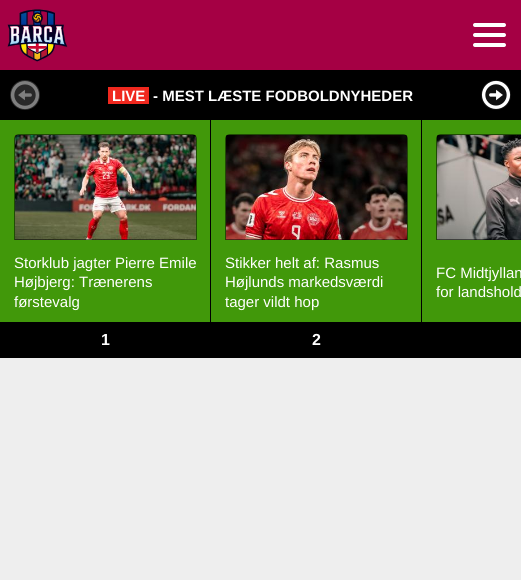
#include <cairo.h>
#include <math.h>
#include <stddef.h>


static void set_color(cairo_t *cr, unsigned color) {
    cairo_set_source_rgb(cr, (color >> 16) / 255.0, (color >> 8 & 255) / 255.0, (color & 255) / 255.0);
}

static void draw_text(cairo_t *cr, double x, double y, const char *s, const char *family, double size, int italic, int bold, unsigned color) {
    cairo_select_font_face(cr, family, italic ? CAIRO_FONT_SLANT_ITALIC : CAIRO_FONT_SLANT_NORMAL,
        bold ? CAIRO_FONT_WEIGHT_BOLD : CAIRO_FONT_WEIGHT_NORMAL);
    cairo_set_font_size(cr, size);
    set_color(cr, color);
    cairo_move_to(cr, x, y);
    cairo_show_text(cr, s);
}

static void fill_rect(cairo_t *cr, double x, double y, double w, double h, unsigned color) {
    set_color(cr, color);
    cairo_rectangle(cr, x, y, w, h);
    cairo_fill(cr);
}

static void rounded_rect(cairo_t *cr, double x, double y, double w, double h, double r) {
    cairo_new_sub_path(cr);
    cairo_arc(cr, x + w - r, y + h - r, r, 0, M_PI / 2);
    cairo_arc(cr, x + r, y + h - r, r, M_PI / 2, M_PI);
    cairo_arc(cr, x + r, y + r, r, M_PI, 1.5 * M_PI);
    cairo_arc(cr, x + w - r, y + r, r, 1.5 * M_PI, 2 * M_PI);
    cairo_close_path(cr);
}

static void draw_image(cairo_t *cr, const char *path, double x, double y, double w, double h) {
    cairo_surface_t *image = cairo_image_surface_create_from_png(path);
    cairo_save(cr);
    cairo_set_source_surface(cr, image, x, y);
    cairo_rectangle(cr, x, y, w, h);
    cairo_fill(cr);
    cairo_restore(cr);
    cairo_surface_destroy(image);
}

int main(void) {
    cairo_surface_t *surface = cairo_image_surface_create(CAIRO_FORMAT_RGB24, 521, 580);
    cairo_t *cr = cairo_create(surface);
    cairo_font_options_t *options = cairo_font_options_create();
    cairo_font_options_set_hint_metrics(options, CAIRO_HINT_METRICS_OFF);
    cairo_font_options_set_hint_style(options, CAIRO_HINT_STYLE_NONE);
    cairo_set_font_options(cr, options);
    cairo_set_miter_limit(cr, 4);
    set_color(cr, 0xEEEEEE);
    cairo_paint(cr);
    fill_rect(cr, 0, 0, 521, 70, 0xA50044);
    draw_image(cr, "assets/img1.png", 6, 9, 63, 54);
    set_color(cr, 0xFFFFFF);
    rounded_rect(cr, 473, 23, 33, 4, 2);
    cairo_fill(cr);
    rounded_rect(cr, 473, 33, 33, 4, 2);
    cairo_fill(cr);
    rounded_rect(cr, 473, 43, 33, 4, 2);
    cairo_fill(cr);
    fill_rect(cr, 0, 70, 521, 50, 0x000000);
    set_color(cr, 0x292929);
    cairo_arc(cr, 25, 95, 15, 0, 2 * M_PI);
    cairo_fill(cr);
    draw_image(cr, "assets/img2.png", 10, 81, 29, 29);
    fill_rect(cr, 108, 87, 41, 17, 0xF0281E);
    draw_text(cr, 112, 101, "LIVE", "Liberation Sans", 15, 0, 1, 0xFFFFFF);
    draw_text(cr, 153, 101, "- MEST LÆSTE FODBOLDNYHEDER", "Liberation Sans", 15, 0, 1, 0xFFFFFF);
    set_color(cr, 0x111111);
    cairo_new_path(cr);
    cairo_move_to(cr, 496, 110);
    cairo_curve_to(cr, 487.5, 110, 481, 103.5, 481, 95);
    cairo_curve_to(cr, 481, 86.5, 487.5, 80, 496, 80);
    cairo_curve_to(cr, 504.5, 80, 511, 86.5, 511, 95);
    cairo_curve_to(cr, 511, 103.5, 504.5, 110, 496, 110);
    cairo_close_path(cr);
    cairo_fill(cr);
    draw_image(cr, "assets/img3.png", 481, 80, 30, 29);
    fill_rect(cr, 210, 120, 1, 202, 0x000000);
    fill_rect(cr, 0, 120, 210, 202, 0x41980A);
    draw_image(cr, "assets/img4.png", 15, 135, 181, 105);
    cairo_new_path(cr);
    cairo_move_to(cr, 19, 134.5);
    cairo_line_to(cr, 192, 134.5);
    cairo_curve_to(cr, 194.5, 134.5, 196.5, 136.5, 196.5, 139);
    cairo_line_to(cr, 196.5, 239.5);
    cairo_line_to(cr, 14.5, 239.5);
    cairo_line_to(cr, 14.5, 139);
    cairo_curve_to(cr, 14.5, 136.5, 16.5, 134.5, 19, 134.5);
    cairo_close_path(cr);
    cairo_set_source_rgba(cr, 0, 0, 0, 0.5);
    cairo_set_line_width(cr, 1);
    cairo_stroke(cr);
    draw_text(cr, 14, 268, "Storklub jagter Pierre Emile", "Liberation Sans", 15, 0, 0, 0xFFFFFF);
    draw_text(cr, 14, 287, "Højbjerg: Trænerens", "Liberation Sans", 15, 0, 0, 0xFFFFFF);
    draw_text(cr, 14, 307, "førstevalg", "Liberation Sans", 15, 0, 0, 0xFFFFFF);
    fill_rect(cr, 0, 322, 521, 36, 0x000000);
    draw_text(cr, 101, 345, "1", "Liberation Sans", 16, 0, 1, 0xFFFFFF);
    fill_rect(cr, 421, 120, 1, 202, 0x000000);
    fill_rect(cr, 211, 120, 210, 202, 0x41980A);
    draw_image(cr, "assets/img5.png", 226, 135, 181, 105);
    cairo_new_path(cr);
    cairo_move_to(cr, 230, 134.5);
    cairo_line_to(cr, 403, 134.5);
    cairo_curve_to(cr, 405.5, 134.5, 407.5, 136.5, 407.5, 139);
    cairo_line_to(cr, 407.5, 239.5);
    cairo_line_to(cr, 225.5, 239.5);
    cairo_line_to(cr, 225.5, 139);
    cairo_curve_to(cr, 225.5, 136.5, 227.5, 134.5, 230, 134.5);
    cairo_close_path(cr);
    cairo_set_source_rgba(cr, 0, 0, 0, 0.5);
    cairo_stroke(cr);
    draw_text(cr, 225, 268, "Stikker helt af: Rasmus", "Liberation Sans", 15, 0, 0, 0xFFFFFF);
    draw_text(cr, 225, 287, "Højlunds markedsværdi", "Liberation Sans", 15, 0, 0, 0xFFFFFF);
    draw_text(cr, 225, 307, "tager vildt hop", "Liberation Sans", 15, 0, 0, 0xFFFFFF);
    draw_text(cr, 312, 345, "2", "Liberation Sans", 16, 0, 1, 0xFFFFFF);
    fill_rect(cr, 422, 120, 99, 202, 0x41980A);
    draw_image(cr, "assets/img6.png", 437, 135, 84, 105);
    cairo_new_path(cr);
    cairo_move_to(cr, 441, 134.5);
    cairo_line_to(cr, 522, 134.5);
    cairo_curve_to(cr, 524.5, 134.5, 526.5, 136.5, 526.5, 139);
    cairo_line_to(cr, 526.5, 239.5);
    cairo_line_to(cr, 436.5, 239.5);
    cairo_line_to(cr, 436.5, 139);
    cairo_curve_to(cr, 436.5, 136.5, 438.5, 134.5, 441, 134.5);
    cairo_close_path(cr);
    cairo_set_source_rgba(cr, 0, 0, 0, 0.5);
    cairo_stroke(cr);
    draw_text(cr, 436, 278, "FC Midtjyllan", "Liberation Sans", 15, 0, 0, 0xFFFFFF);
    draw_text(cr, 436, 297, "for landshold", "Liberation Sans", 15, 0, 0, 0xFFFFFF);
    cairo_surface_write_to_png(surface, "output.png");
    cairo_font_options_destroy(options);
    cairo_destroy(cr);
    cairo_surface_destroy(surface);
    return 0;
}
